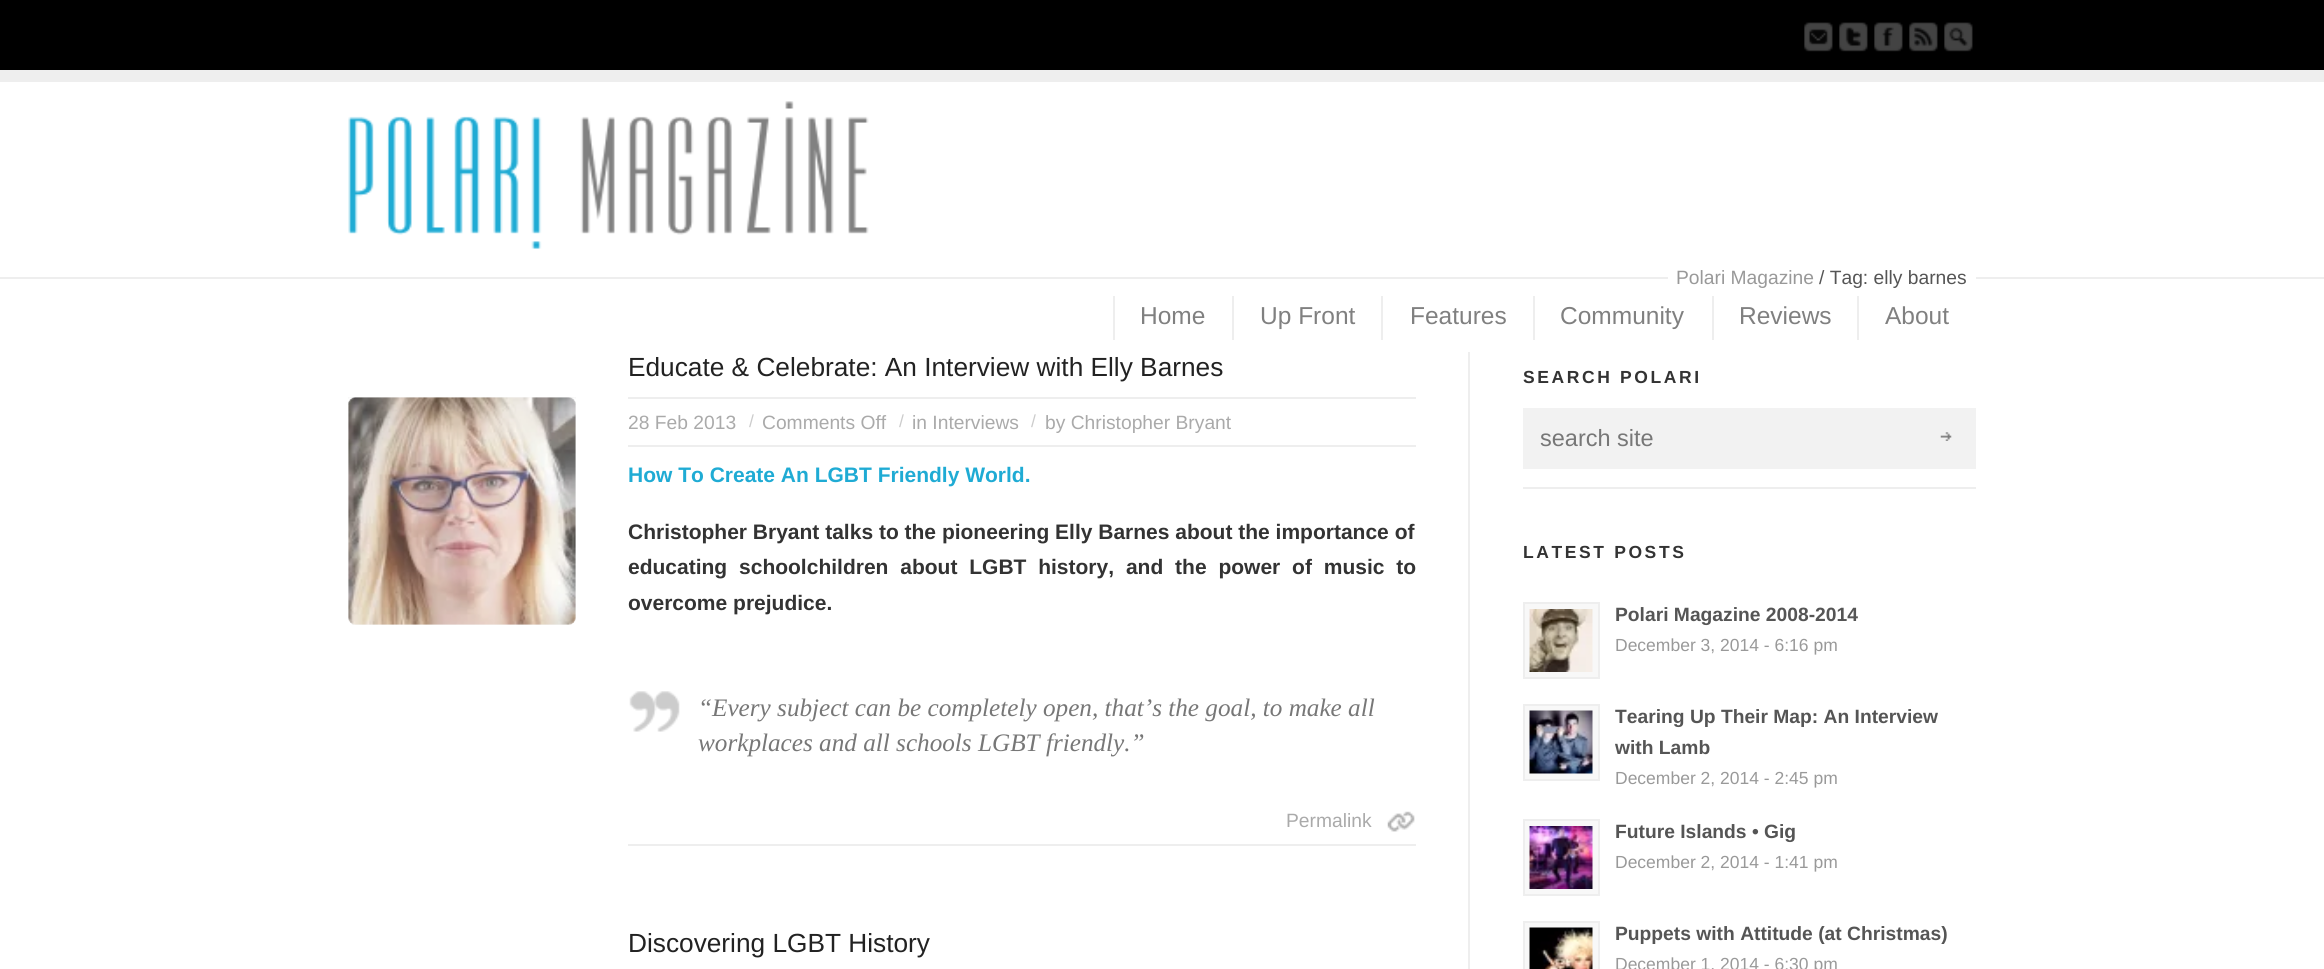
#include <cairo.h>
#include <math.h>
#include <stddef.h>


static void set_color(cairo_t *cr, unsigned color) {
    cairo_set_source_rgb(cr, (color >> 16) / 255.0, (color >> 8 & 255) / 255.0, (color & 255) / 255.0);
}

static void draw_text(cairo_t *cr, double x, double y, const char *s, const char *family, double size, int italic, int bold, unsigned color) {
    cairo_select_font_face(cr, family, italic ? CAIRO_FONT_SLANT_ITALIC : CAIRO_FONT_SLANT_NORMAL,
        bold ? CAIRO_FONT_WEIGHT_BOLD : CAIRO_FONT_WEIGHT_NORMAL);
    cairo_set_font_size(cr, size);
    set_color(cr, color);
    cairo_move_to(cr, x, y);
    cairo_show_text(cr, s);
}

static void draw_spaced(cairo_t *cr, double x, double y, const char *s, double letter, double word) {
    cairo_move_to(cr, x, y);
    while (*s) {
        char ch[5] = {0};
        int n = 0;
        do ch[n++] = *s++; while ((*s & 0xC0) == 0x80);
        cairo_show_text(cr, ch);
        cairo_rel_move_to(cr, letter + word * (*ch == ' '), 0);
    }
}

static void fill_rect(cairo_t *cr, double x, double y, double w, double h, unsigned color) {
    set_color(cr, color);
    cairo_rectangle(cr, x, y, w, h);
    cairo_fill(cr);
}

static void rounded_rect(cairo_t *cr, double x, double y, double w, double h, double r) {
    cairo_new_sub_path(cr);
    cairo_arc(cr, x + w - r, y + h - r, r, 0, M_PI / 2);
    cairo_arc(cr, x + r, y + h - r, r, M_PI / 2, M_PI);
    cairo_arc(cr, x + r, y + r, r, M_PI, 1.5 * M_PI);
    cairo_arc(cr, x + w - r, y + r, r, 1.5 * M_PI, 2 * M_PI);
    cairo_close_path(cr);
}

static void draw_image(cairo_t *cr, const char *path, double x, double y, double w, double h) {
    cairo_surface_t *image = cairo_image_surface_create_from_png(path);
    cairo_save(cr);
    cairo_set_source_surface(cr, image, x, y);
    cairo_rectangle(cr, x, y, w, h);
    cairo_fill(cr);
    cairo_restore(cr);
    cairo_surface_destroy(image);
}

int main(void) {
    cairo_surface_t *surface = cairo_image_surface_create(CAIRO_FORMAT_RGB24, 2324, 969);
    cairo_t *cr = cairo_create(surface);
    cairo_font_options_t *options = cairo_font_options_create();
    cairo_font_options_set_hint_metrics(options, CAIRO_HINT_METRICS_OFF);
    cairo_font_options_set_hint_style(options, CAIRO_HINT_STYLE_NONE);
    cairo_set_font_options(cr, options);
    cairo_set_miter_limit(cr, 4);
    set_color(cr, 0xFFFFFF);
    cairo_paint(cr);
    fill_rect(cr, 0, 277, 2324, 2, 0xEEEEEE);
    fill_rect(cr, 0, 0, 2324, 70, 0x000000);
    fill_rect(cr, 0, 70, 2324, 12, 0xEEEEEE);
    draw_image(cr, "assets/img1.png", 1804, 22, 29, 30);
    draw_image(cr, "assets/img2.png", 1839, 22, 29, 30);
    draw_image(cr, "assets/img3.png", 1874, 22, 29, 30);
    draw_image(cr, "assets/img4.png", 1909, 22, 29, 30);
    draw_image(cr, "assets/img5.png", 1944, 22, 29, 30);
    fill_rect(cr, 1668, 277, 308, 2, 0xFFFFFF);
    draw_text(cr, 1676, 284, "Polari Magazine", "Liberation Sans", 19.25, 0, 0, 0x999999);
    draw_text(cr, 1819, 284, "/ Tag: elly barnes", "Liberation Sans", 19.25, 0, 0, 0x555555);
    draw_image(cr, "assets/img6.png", 348, 101, 521, 148);
    fill_rect(cr, 1113, 296, 2, 44, 0xEEEEEE);
    draw_text(cr, 1140, 324, "Home", "Liberation Sans", 24.5, 0, 0, 0x808080);
    fill_rect(cr, 1232, 296, 2, 44, 0xEEEEEE);
    draw_text(cr, 1260, 324, "Up Front", "Liberation Sans", 24.5, 0, 0, 0x808080);
    fill_rect(cr, 1381, 296, 2, 44, 0xEEEEEE);
    draw_text(cr, 1410, 324, "Features", "Liberation Sans", 24.5, 0, 0, 0x808080);
    fill_rect(cr, 1533, 296, 2, 44, 0xEEEEEE);
    draw_text(cr, 1560, 324, "Community", "Liberation Sans", 24.5, 0, 0, 0x808080);
    fill_rect(cr, 1712, 296, 2, 44, 0xEEEEEE);
    draw_text(cr, 1739, 324, "Reviews", "Liberation Sans", 24.5, 0, 0, 0x808080);
    fill_rect(cr, 1857, 296, 2, 44, 0xEEEEEE);
    draw_text(cr, 1885, 324, "About", "Liberation Sans", 24.5, 0, 0, 0x808080);
    draw_text(cr, 628, 376, "Educate & Celebrate: An Interview with Elly Barnes", "Liberation Sans", 26.25, 0, 0, 0x222222);
    fill_rect(cr, 348, 397, 228, 2, 0xEEEEEE);
    set_color(cr, 0xF8F8F8);
    rounded_rect(cr, 348, 397, 228, 228, 7);
    cairo_fill(cr);
    draw_image(cr, "assets/img7.png", 452, 500, 21, 22);
    draw_image(cr, "assets/img8.png", 348, 397, 228, 228);
    draw_image(cr, "assets/img9.png", 348, 397, 6, 6);
    draw_image(cr, "assets/img10.png", 570, 397, 6, 7);
    draw_image(cr, "assets/img11.png", 348, 619, 6, 5);
    draw_image(cr, "assets/img12.png", 569, 616, 7, 9);
    fill_rect(cr, 628, 397, 788, 2, 0xEEEEEE);
    draw_text(cr, 628, 429, "28 Feb 2013", "Liberation Sans", 19.25, 0, 0, 0xAAAAAA);
    draw_text(cr, 749, 427, "/", "Liberation Sans", 17.5, 0, 0, 0xCCCCCC);
    draw_text(cr, 762, 429, "Comments Off", "Liberation Sans", 19.25, 0, 0, 0xAAAAAA);
    draw_text(cr, 899, 427, "/", "Liberation Sans", 17.5, 0, 0, 0xCCCCCC);
    draw_text(cr, 912, 429, "in Interviews", "Liberation Sans", 19.25, 0, 0, 0xAAAAAA);
    draw_text(cr, 1031, 427, "/", "Liberation Sans", 17.5, 0, 0, 0xCCCCCC);
    draw_text(cr, 1045, 429, "by Christopher Bryant", "Liberation Sans", 19.25, 0, 0, 0xAAAAAA);
    fill_rect(cr, 628, 445, 788, 2, 0xEEEEEE);
    draw_text(cr, 628, 482, "How To Create An LGBT Friendly World.", "Liberation Sans", 21, 0, 1, 0x1FABD4);
    draw_text(cr, 628, 539, "Christopher Bryant talks to the pioneering Elly Barnes about the importance of", "Liberation Sans", 21, 0, 1, 0x333333);
    draw_spaced(cr, 628, 574, "educating schoolchildren about LGBT history, and the power of music to", 0, 6);
    draw_text(cr, 628, 610, "overcome prejudice.", "Liberation Sans", 21, 0, 1, 0x333333);
    draw_image(cr, "assets/img13.png", 629, 691, 51, 41);
    draw_text(cr, 698, 716, "“Every subject can be completely open, that’s the goal, to make all", "Liberation Serif", 25.2, 1, 0, 0x777777);
    draw_text(cr, 698, 751, "workplaces and all schools LGBT friendly.”", "Liberation Serif", 25.2, 1, 0, 0x777777);
    draw_image(cr, "assets/img14.png", 1387, 811, 28, 21);
    fill_rect(cr, 628, 844, 788, 2, 0xEEEEEE);
    draw_text(cr, 1286, 827, "Permalink", "Liberation Sans", 19.25, 0, 0, 0xAAAAAA);
    draw_text(cr, 628, 952, "Discovering LGBT History", "Liberation Sans", 26.25, 0, 0, 0x222222);
    fill_rect(cr, 1468, 352, 2, 617, 0xEEEEEE);
    fill_rect(cr, 1523, 487, 453, 2, 0xEEEEEE);
    cairo_select_font_face(cr, "Liberation Sans", CAIRO_FONT_SLANT_NORMAL, CAIRO_FONT_WEIGHT_BOLD);
    cairo_set_font_size(cr, 17.5);
    set_color(cr, 0x333333);
    draw_spaced(cr, 1523, 383, "SEARCH POLARI", 2.6, 0);
    fill_rect(cr, 1523, 408, 453, 61, 0xF2F2F2);
    draw_text(cr, 1540, 446, "search site", "Liberation Sans", 23.5, 0, 0, 0x777777);
    draw_image(cr, "assets/img15.png", 1940, 432, 12, 9);
    cairo_select_font_face(cr, "Liberation Sans", CAIRO_FONT_SLANT_NORMAL, CAIRO_FONT_WEIGHT_BOLD);
    cairo_set_font_size(cr, 17.5);
    set_color(cr, 0x333333);
    draw_spaced(cr, 1523, 558, "LATEST POSTS", 2.6, 0);
    set_color(cr, 0xF8F8F8);
    cairo_rectangle(cr, 1524, 603, 75, 75);
    cairo_fill_preserve(cr);
    set_color(cr, 0xEEEEEE);
    cairo_stroke(cr);
    draw_image(cr, "assets/img16.png", 1529, 609, 64, 63);
    draw_text(cr, 1615, 621, "Polari Magazine 2008-2014", "Liberation Sans", 19.25, 0, 1, 0x555555);
    draw_text(cr, 1615, 651, "December 3, 2014 - 6:16 pm", "Liberation Sans", 17.5, 0, 0, 0x999999);
    set_color(cr, 0xF8F8F8);
    cairo_rectangle(cr, 1524, 705, 75, 75);
    cairo_fill_preserve(cr);
    set_color(cr, 0xEEEEEE);
    cairo_stroke(cr);
    draw_image(cr, "assets/img17.png", 1529, 710, 64, 64);
    draw_text(cr, 1615, 723, "Tearing Up Their Map: An Interview", "Liberation Sans", 19.25, 0, 1, 0x555555);
    draw_text(cr, 1615, 754, "with Lamb", "Liberation Sans", 19.25, 0, 1, 0x555555);
    draw_text(cr, 1615, 784, "December 2, 2014 - 2:45 pm", "Liberation Sans", 17.5, 0, 0, 0x999999);
    set_color(cr, 0xF8F8F8);
    cairo_rectangle(cr, 1524, 820, 75, 75);
    cairo_fill_preserve(cr);
    set_color(cr, 0xEEEEEE);
    cairo_stroke(cr);
    draw_image(cr, "assets/img18.png", 1529, 826, 64, 63);
    draw_text(cr, 1615, 838, "Future Islands • Gig", "Liberation Sans", 19.25, 0, 1, 0x555555);
    draw_text(cr, 1615, 868, "December 2, 2014 - 1:41 pm", "Liberation Sans", 17.5, 0, 0, 0x999999);
    set_color(cr, 0xF8F8F8);
    cairo_rectangle(cr, 1524, 922, 75, 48);
    cairo_fill_preserve(cr);
    set_color(cr, 0xEEEEEE);
    cairo_stroke(cr);
    draw_image(cr, "assets/img19.png", 1529, 927, 64, 42);
    draw_text(cr, 1615, 940, "Puppets with Attitude (at Christmas)", "Liberation Sans", 19.25, 0, 1, 0x555555);
    draw_text(cr, 1615, 970, "December 1, 2014 - 6:30 pm", "Liberation Sans", 17.5, 0, 0, 0x999999);
    cairo_surface_write_to_png(surface, "output.png");
    cairo_font_options_destroy(options);
    cairo_destroy(cr);
    cairo_surface_destroy(surface);
    return 0;
}
